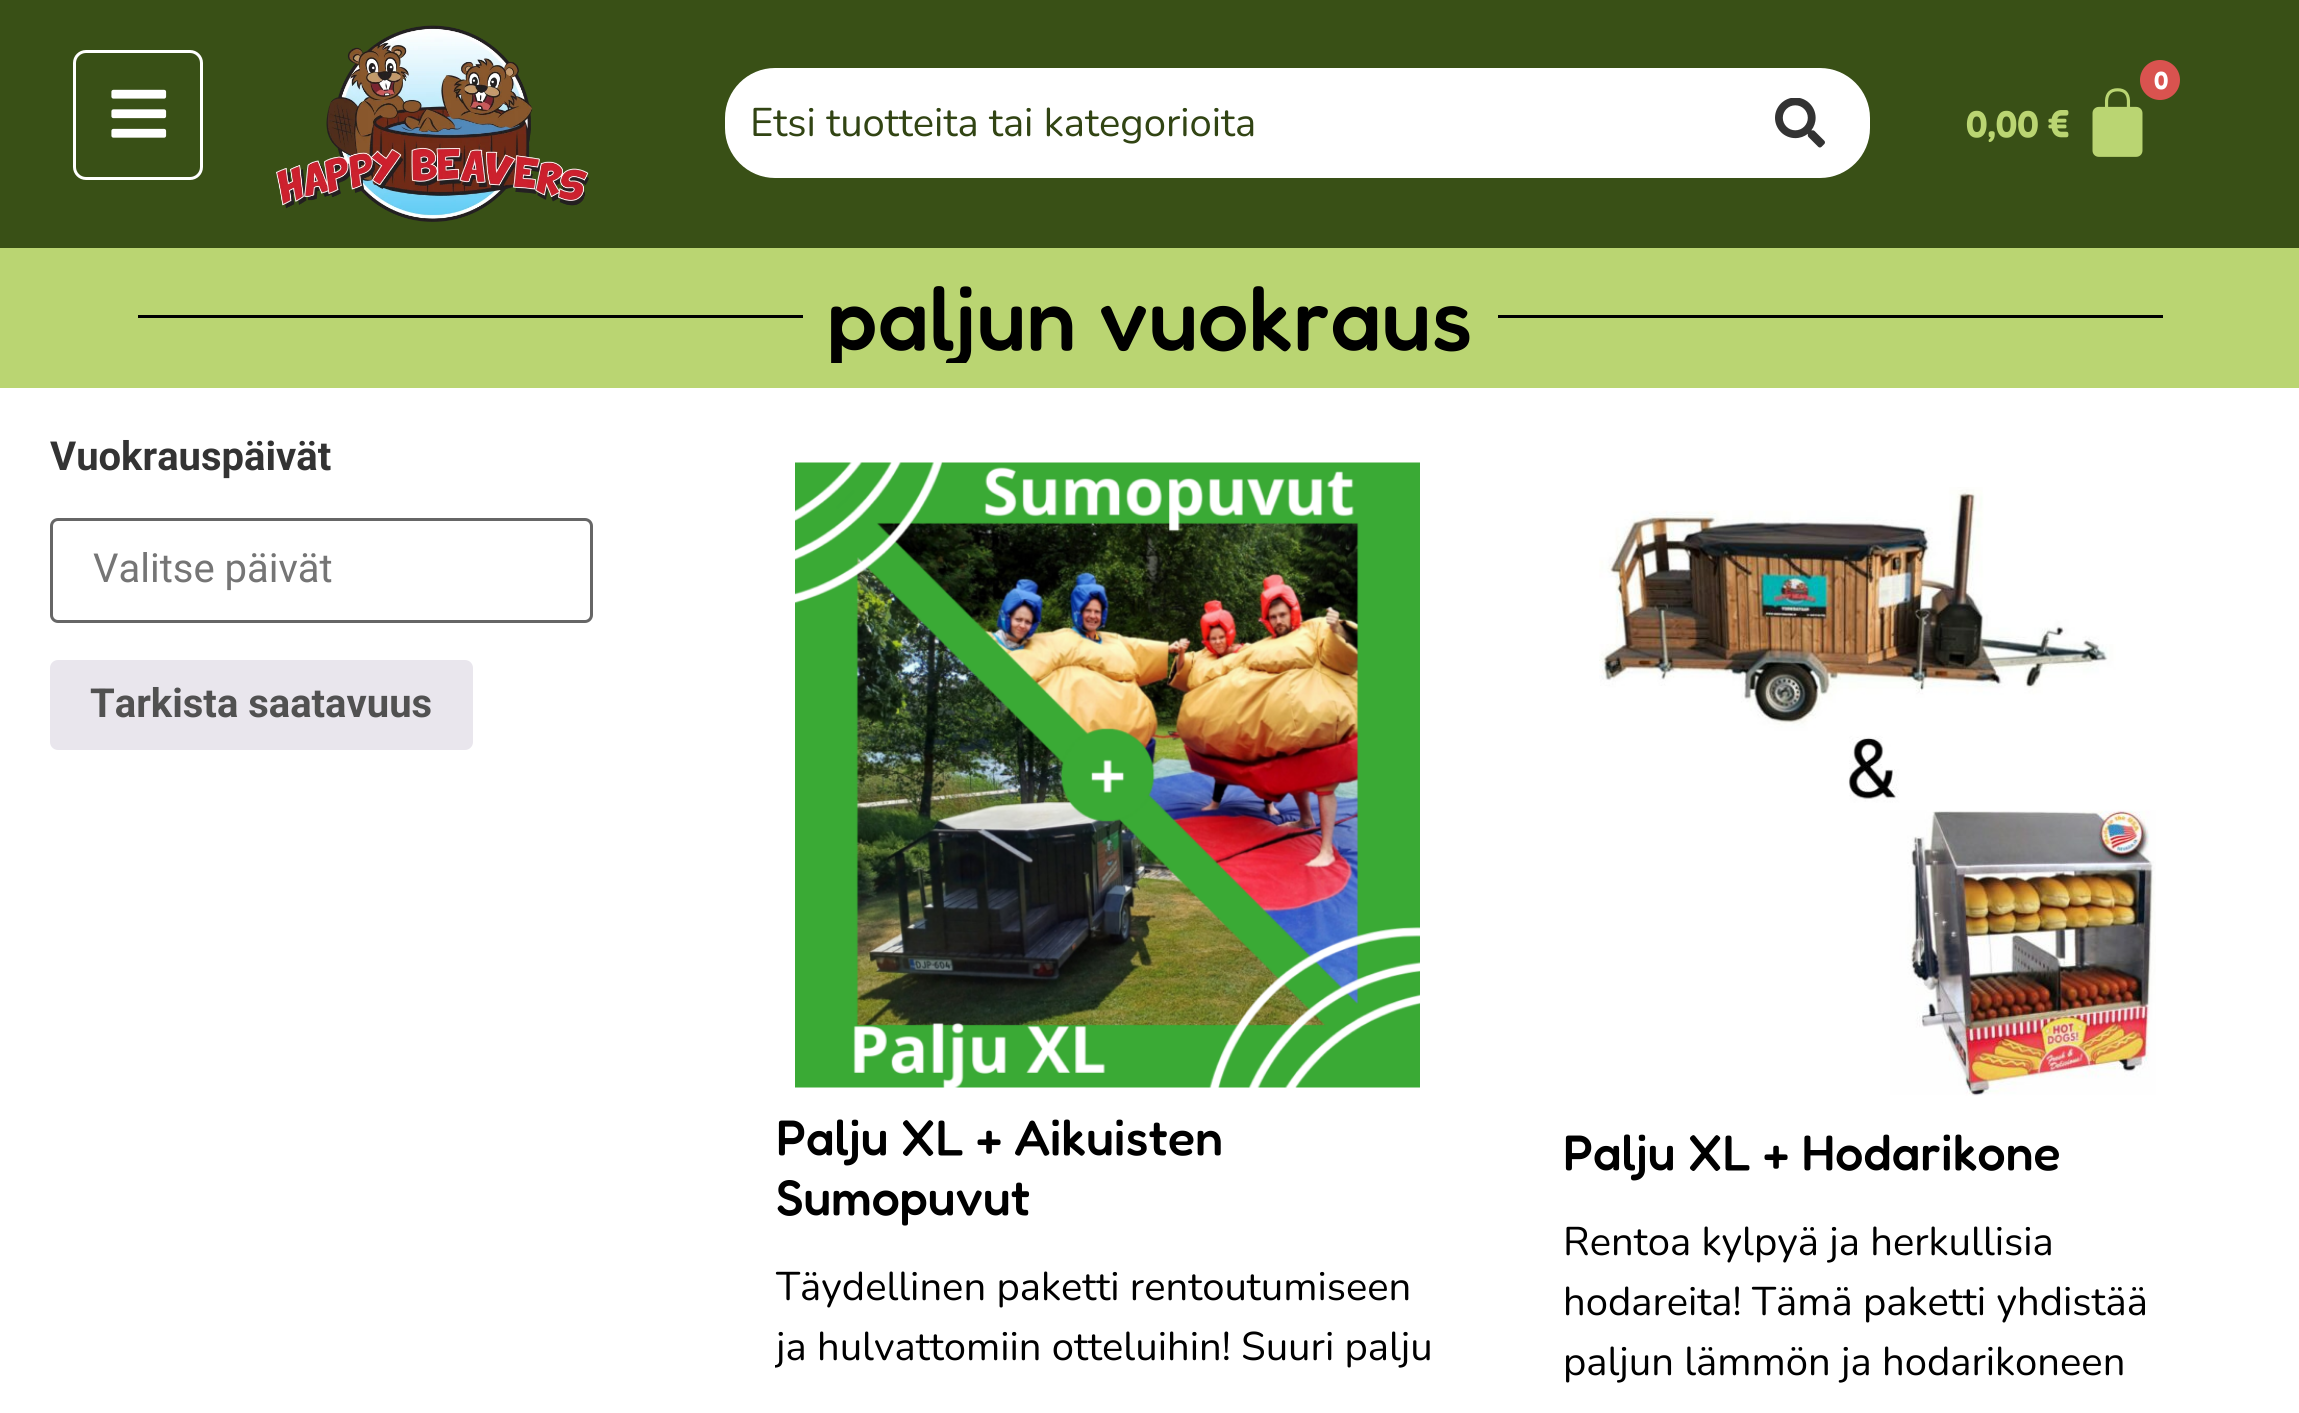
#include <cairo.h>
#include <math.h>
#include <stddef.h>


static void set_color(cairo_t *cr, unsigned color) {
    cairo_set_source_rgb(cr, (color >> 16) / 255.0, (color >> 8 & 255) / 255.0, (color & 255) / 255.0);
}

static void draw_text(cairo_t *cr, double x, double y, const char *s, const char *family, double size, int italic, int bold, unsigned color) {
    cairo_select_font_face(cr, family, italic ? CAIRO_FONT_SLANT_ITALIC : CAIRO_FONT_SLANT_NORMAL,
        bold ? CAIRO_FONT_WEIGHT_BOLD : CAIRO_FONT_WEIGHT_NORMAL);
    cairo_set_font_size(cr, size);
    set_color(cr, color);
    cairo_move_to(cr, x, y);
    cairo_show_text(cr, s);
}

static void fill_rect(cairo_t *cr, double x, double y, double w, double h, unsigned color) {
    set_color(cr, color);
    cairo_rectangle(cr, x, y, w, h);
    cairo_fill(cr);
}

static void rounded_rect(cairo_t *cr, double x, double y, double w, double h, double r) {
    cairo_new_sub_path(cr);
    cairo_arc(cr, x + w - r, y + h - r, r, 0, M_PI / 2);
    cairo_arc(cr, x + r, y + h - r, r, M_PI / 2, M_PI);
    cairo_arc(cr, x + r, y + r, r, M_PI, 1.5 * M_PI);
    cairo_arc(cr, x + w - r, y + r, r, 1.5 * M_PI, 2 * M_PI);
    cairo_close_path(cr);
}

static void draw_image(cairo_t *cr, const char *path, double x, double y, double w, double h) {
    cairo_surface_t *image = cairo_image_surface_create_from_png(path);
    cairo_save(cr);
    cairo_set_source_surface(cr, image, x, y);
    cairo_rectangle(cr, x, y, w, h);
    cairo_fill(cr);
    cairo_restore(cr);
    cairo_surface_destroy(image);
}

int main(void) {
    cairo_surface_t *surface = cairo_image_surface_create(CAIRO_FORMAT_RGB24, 2299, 1413);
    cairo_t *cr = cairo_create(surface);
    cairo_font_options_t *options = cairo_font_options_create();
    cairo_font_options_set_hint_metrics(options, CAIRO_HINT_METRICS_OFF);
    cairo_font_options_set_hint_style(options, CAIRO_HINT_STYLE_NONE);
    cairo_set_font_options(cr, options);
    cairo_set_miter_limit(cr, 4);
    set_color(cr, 0xFFFFFF);
    cairo_paint(cr);
    fill_rect(cr, 0, 0, 2299, 248, 0x395016);
    rounded_rect(cr, 74.5, 51.5, 127, 127, 11.5);
    set_color(cr, 0xFFFFFF);
    cairo_set_line_width(cr, 3);
    cairo_stroke(cr);
    draw_image(cr, "assets/img1.png", 111, 89, 56, 49);
    draw_image(cr, "assets/img2.png", 276, 25, 313, 197);
    cairo_new_path(cr);
    cairo_move_to(cr, 775, 68);
    cairo_line_to(cr, 1775, 68);
    cairo_line_to(cr, 1775, 178);
    cairo_line_to(cr, 775, 178);
    cairo_curve_to(cr, 747.5, 178, 725, 155.5, 725, 128);
    cairo_line_to(cr, 725, 118);
    cairo_curve_to(cr, 725, 90.5, 747.5, 68, 775, 68);
    cairo_close_path(cr);
    cairo_fill(cr);
    draw_text(cr, 750, 136, "Etsi tuotteita tai kategorioita", "Nunito", 40, 0, 0, 0x314413);
    set_color(cr, 0xFFFFFF);
    cairo_new_path(cr);
    cairo_move_to(cr, 1775, 68);
    cairo_line_to(cr, 1820, 68);
    cairo_curve_to(cr, 1847.5, 68, 1870, 90.5, 1870, 118);
    cairo_line_to(cr, 1870, 128);
    cairo_curve_to(cr, 1870, 155.5, 1847.5, 178, 1820, 178);
    cairo_line_to(cr, 1775, 178);
    cairo_close_path(cr);
    cairo_fill(cr);
    draw_image(cr, "assets/img3.png", 1775, 98, 50, 50);
    draw_image(cr, "assets/img4.png", 2092, 88, 51, 69);
    set_color(cr, 0xD9534F);
    cairo_arc(cr, 2160, 80, 20, 0, 2 * M_PI);
    cairo_fill(cr);
    draw_text(cr, 2154, 89, "0", "Fredoka SemiBold", 25, 0, 0, 0xFFFFFF);
    draw_text(cr, 1966, 137, "0,00 €", "Fredoka SemiBold", 37.5, 0, 0, 0xBAD572);
    fill_rect(cr, 0, 248, 2299, 140, 0xBAD572);
    fill_rect(cr, 138, 315, 665, 3, 0x000000);
    cairo_save(cr);
    cairo_rectangle(cr, 138, 273, 2025, 90);
    cairo_clip(cr);
    draw_text(cr, 827, 350, "paljun vuokraus", "Fredoka Medium", 90, 0, 0, 0x000000);
    cairo_restore(cr);
    fill_rect(cr, 1498, 315, 665, 3, 0x000000);
    draw_text(cr, 50, 470, "Vuokrauspäivät", "Roboto", 40, 0, 1, 0x333333);
    rounded_rect(cr, 51.5, 519.5, 540, 102, 6.5);
    set_color(cr, 0x666666);
    cairo_stroke(cr);
    draw_text(cr, 93, 582, "Valitse päivät", "Roboto", 40, 0, 0, 0x757575);
    set_color(cr, 0xE9E6ED);
    rounded_rect(cr, 50, 660, 423, 90, 8);
    cairo_fill(cr);
    draw_text(cr, 90, 717, "Tarkista saatavuus", "Roboto", 40, 0, 1, 0x515151);
    draw_image(cr, "assets/img5.png", 795, 462, 625, 626);
    draw_text(cr, 776, 1155, "Palju XL + Aikuisten", "Fredoka Medium", 50, 0, 0, 0x000000);
    draw_text(cr, 776, 1215, "Sumopuvut", "Fredoka Medium", 50, 0, 0, 0x000000);
    draw_text(cr, 776, 1300, "Täydellinen paketti rentoutumiseen", "Nunito", 40, 0, 0, 0x000000);
    cairo_save(cr);
    cairo_rectangle(cr, 775, 1258, 663, 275);
    cairo_clip(cr);
    draw_text(cr, 776, 1360, "ja hulvattomiin otteluihin! Suuri palju", "Nunito", 40, 0, 0, 0x000000);
    cairo_restore(cr);
    draw_image(cr, "assets/img6.png", 1599, 487, 557, 609);
    draw_text(cr, 1563, 1170, "Palju XL + Hodarikone", "Fredoka Medium", 50, 0, 0, 0x000000);
    draw_text(cr, 1563, 1255, "Rentoa kylpyä ja herkullisia", "Nunito", 40, 0, 0, 0x000000);
    draw_text(cr, 1563, 1315, "hodareita! Tämä paketti yhdistää", "Nunito", 40, 0, 0, 0x000000);
    draw_text(cr, 1563, 1375, "paljun lämmön ja hodarikoneen", "Nunito", 40, 0, 0, 0x000000);
    cairo_surface_write_to_png(surface, "output.png");
    cairo_font_options_destroy(options);
    cairo_destroy(cr);
    cairo_surface_destroy(surface);
    return 0;
}
